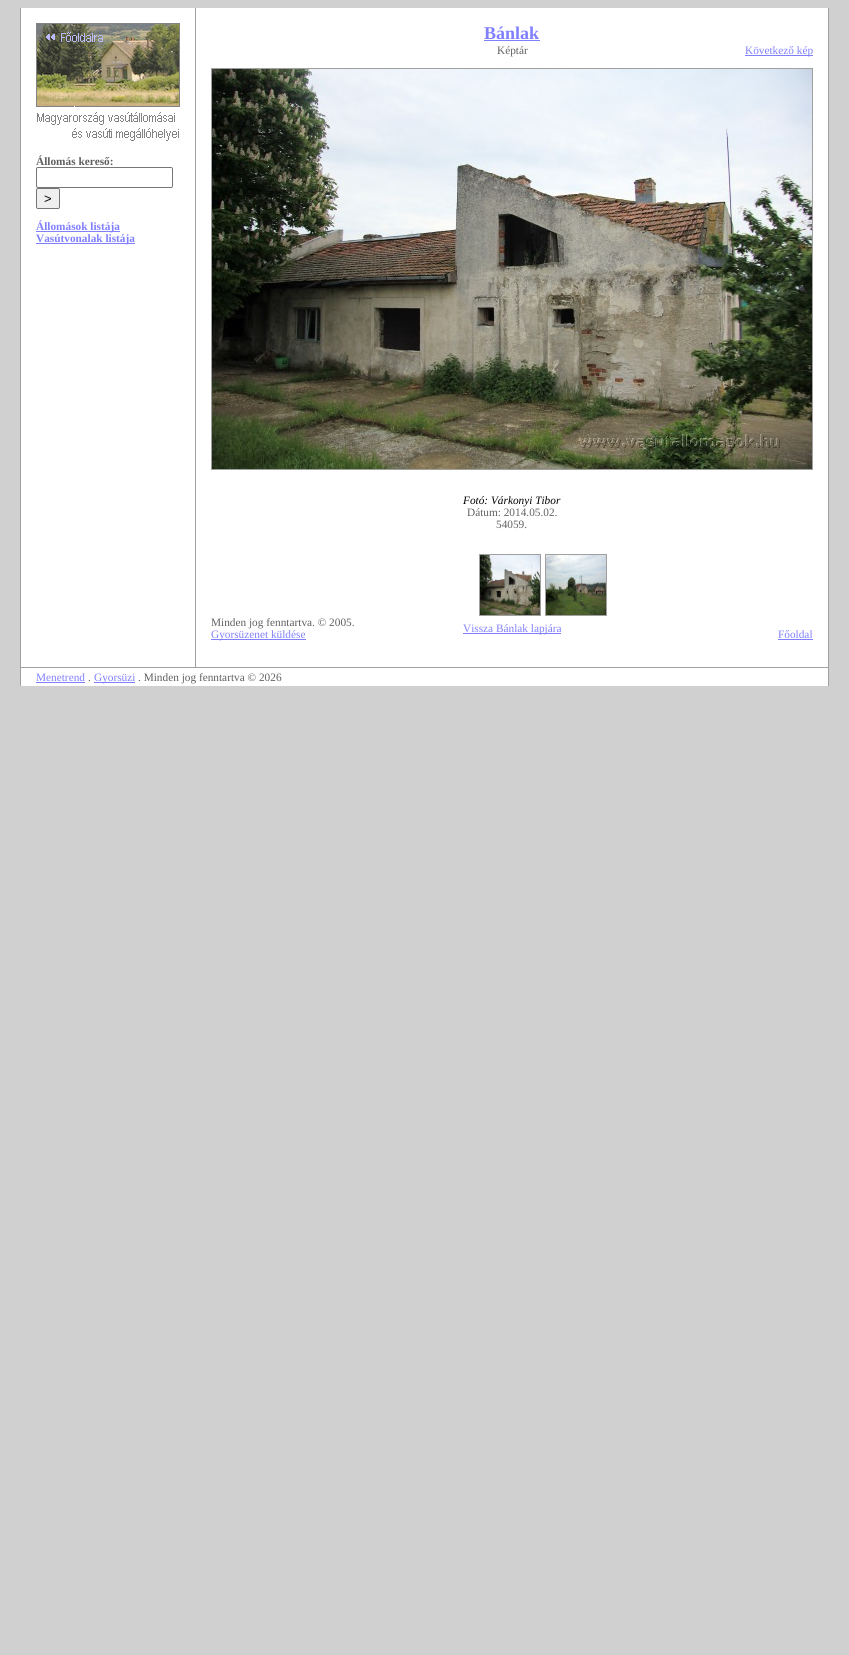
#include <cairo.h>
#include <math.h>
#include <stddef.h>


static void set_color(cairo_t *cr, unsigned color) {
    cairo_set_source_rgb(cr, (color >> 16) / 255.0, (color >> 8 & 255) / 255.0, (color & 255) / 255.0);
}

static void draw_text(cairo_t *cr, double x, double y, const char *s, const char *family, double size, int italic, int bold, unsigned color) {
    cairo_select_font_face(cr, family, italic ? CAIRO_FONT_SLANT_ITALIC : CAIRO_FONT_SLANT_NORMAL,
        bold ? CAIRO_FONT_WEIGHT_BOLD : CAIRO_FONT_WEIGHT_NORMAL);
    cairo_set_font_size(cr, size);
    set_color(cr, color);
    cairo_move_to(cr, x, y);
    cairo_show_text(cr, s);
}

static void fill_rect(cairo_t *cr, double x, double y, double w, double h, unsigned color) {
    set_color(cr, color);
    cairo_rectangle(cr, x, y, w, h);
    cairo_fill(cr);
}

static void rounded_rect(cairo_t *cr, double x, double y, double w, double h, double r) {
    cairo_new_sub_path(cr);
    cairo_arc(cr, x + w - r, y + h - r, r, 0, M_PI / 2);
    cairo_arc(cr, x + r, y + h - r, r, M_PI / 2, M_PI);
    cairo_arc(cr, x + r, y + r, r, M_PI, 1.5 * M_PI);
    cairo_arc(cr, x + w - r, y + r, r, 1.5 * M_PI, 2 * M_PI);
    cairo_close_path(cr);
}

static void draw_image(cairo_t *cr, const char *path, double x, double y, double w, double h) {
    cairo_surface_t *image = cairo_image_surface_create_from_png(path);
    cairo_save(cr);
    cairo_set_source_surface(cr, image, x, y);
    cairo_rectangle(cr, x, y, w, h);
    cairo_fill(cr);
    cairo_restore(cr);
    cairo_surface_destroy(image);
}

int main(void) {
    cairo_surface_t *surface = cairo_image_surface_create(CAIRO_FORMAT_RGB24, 849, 1655);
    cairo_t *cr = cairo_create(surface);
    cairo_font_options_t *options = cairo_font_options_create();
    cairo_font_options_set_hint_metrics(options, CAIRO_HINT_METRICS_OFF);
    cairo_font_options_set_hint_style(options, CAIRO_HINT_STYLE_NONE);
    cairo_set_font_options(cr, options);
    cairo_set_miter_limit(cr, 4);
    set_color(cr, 0xD0D0D0);
    cairo_paint(cr);
    fill_rect(cr, 21, 8, 807, 678, 0xFFFFFF);
    fill_rect(cr, 20, 8, 1, 659, 0xA0A0A0);
    draw_image(cr, "assets/img1.png", 36, 23, 144, 118);
    draw_text(cr, 36, 165, "Állomás kereső:", "Liberation Serif", 11.3, 0, 1, 0x606060);
    rounded_rect(cr, 36.5, 167.5, 136, 20, 1.5);
    set_color(cr, 0x767676);
    cairo_set_line_width(cr, 1);
    cairo_stroke(cr);
    set_color(cr, 0xEFEFEF);
    rounded_rect(cr, 36.5, 188.5, 23, 20, 1.5);
    cairo_fill_preserve(cr);
    set_color(cr, 0x767676);
    cairo_stroke(cr);
    draw_text(cr, 44, 203, ">", "Liberation Sans", 13, 0, 0, 0x000000);
    fill_rect(cr, 36, 231, 84, 1, 0x8080FF);
    draw_text(cr, 36, 230, "Állomások listája", "Liberation Serif", 11.3, 0, 1, 0x8080FF);
    fill_rect(cr, 36, 243, 99, 1, 0x8080FF);
    draw_text(cr, 36, 242, "Vasútvonalak listája", "Liberation Serif", 11.3, 0, 1, 0x8080FF);
    fill_rect(cr, 828, 8, 1, 659, 0xA0A0A0);
    fill_rect(cr, 195, 8, 1, 659, 0xA0A0A0);
    draw_text(cr, 484, 39, "Bánlak", "Liberation Serif", 18, 0, 1, 0x8080FF);
    fill_rect(cr, 484, 40, 56, 1, 0x8080FF);
    draw_text(cr, 497, 54, "Képtár", "Liberation Serif", 11.3, 0, 0, 0x606060);
    fill_rect(cr, 745, 55, 68, 1, 0x8080FF);
    draw_text(cr, 745, 54, "Következő kép", "Liberation Serif", 11.3, 0, 0, 0x8080FF);
    cairo_rectangle(cr, 211.5, 68.5, 601, 401);
    set_color(cr, 0xA0A0A0);
    cairo_stroke(cr);
    draw_image(cr, "assets/img2.png", 212, 69, 600, 400);
    draw_text(cr, 463, 504, "Fotó: Várkonyi Tibor", "Liberation Serif", 11.3, 1, 0, 0x000000);
    draw_text(cr, 467, 516, "Dátum: 2014.05.02.", "Liberation Serif", 11.3, 0, 0, 0x606060);
    draw_text(cr, 496, 528, "54059.", "Liberation Serif", 11.3, 0, 0, 0x606060);
    cairo_rectangle(cr, 479.5, 554.5, 61, 61);
    set_color(cr, 0xA0A0A0);
    cairo_stroke(cr);
    draw_image(cr, "assets/img3.png", 480, 555, 60, 60);
    cairo_rectangle(cr, 545.5, 554.5, 61, 61);
    cairo_stroke(cr);
    draw_image(cr, "assets/img4.png", 546, 555, 60, 60);
    draw_text(cr, 211, 626, "Minden jog fenntartva. © 2005.", "Liberation Serif", 11.3, 0, 0, 0x606060);
    fill_rect(cr, 211, 639, 95, 1, 0x8080FF);
    draw_text(cr, 211, 638, "Gyorsüzenet küldése", "Liberation Serif", 11.3, 0, 0, 0x8080FF);
    fill_rect(cr, 463, 633, 98, 1, 0x8080FF);
    draw_text(cr, 463, 632, "Vissza Bánlak lapjára", "Liberation Serif", 11.3, 0, 0, 0x8080FF);
    draw_text(cr, 778, 638, "Főoldal", "Liberation Serif", 11.3, 0, 0, 0x8080FF);
    fill_rect(cr, 778, 639, 35, 1, 0x8080FF);
    fill_rect(cr, 20, 667, 809, 1, 0xA0A0A0);
    fill_rect(cr, 828, 667, 1, 19, 0xA0A0A0);
    fill_rect(cr, 20, 667, 1, 19, 0xA0A0A0);
    draw_text(cr, 36, 681, "Menetrend", "Liberation Serif", 11.3, 0, 0, 0x8080FF);
    fill_rect(cr, 36, 682, 49, 1, 0x8080FF);
    draw_text(cr, 88, 681, ".", "Liberation Serif", 11.3, 0, 0, 0x606060);
    fill_rect(cr, 94, 682, 41, 1, 0x8080FF);
    draw_text(cr, 94, 681, "Gyorsüzi", "Liberation Serif", 11.3, 0, 0, 0x8080FF);
    draw_text(cr, 138, 681, ". Minden jog fenntartva © 2026", "Liberation Serif", 11.3, 0, 0, 0x606060);
    cairo_surface_write_to_png(surface, "output.png");
    cairo_font_options_destroy(options);
    cairo_destroy(cr);
    cairo_surface_destroy(surface);
    return 0;
}
